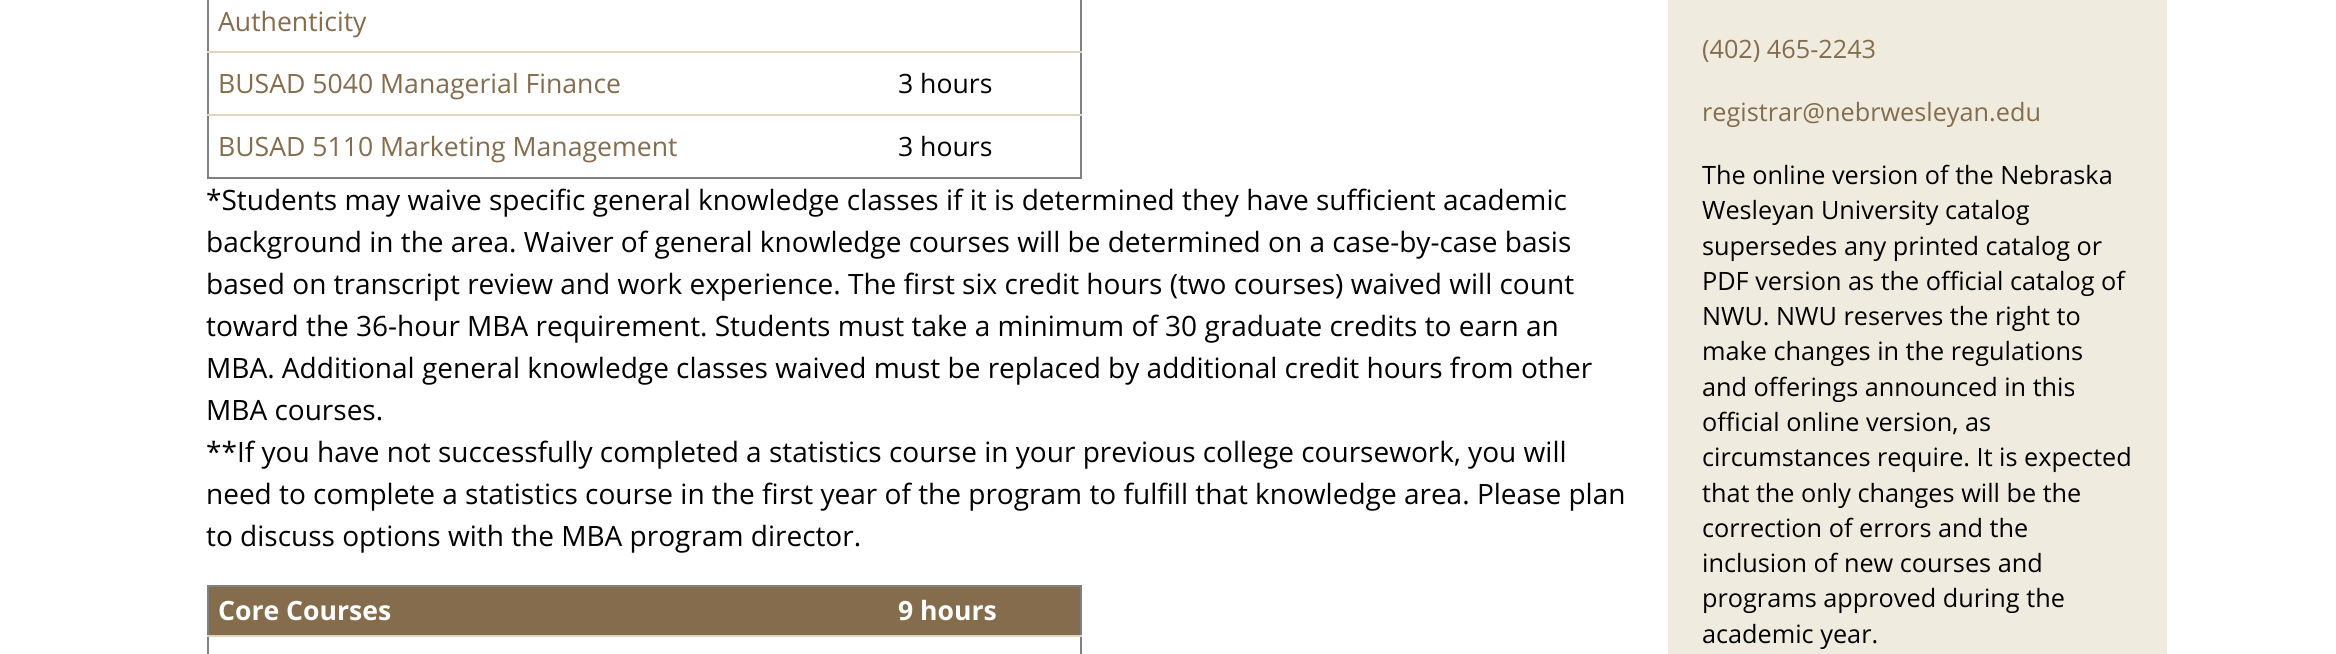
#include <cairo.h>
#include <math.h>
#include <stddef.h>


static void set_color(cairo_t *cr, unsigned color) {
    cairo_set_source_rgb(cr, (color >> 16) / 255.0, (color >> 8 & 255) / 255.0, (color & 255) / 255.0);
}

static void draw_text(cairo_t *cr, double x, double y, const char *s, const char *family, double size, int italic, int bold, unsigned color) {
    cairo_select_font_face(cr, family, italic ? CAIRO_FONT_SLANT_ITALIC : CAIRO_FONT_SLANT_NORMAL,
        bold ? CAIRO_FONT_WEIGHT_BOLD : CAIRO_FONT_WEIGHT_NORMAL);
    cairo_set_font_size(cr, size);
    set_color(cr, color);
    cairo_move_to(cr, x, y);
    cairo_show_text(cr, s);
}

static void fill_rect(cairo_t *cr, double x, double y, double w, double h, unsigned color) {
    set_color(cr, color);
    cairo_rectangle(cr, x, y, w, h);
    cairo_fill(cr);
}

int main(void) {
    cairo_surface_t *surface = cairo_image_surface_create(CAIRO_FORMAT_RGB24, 2336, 654);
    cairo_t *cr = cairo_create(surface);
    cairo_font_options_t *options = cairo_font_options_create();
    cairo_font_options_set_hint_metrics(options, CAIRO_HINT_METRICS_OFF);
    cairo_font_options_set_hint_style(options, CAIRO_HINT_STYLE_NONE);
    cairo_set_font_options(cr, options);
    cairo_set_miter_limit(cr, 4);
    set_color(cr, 0xFFFFFF);
    cairo_paint(cr);
    fill_rect(cr, 1080, 0, 2, 179, 0x808080);
    fill_rect(cr, 207, 177, 875, 2, 0x808080);
    fill_rect(cr, 207, 0, 2, 179, 0x808080);
    draw_text(cr, 218, 31, "Authenticity", "Open Sans", 26.6, 0, 0, 0x846C4D);
    draw_text(cr, 218, 93, "BUSAD 5040 Managerial Finance", "Open Sans", 26.6, 0, 0, 0x846C4D);
    fill_rect(cr, 207, 51, 875, 2, 0xDED7BE);
    draw_text(cr, 898, 93, "3 hours", "Open Sans", 26.6, 0, 0, 0x000000);
    draw_text(cr, 218, 156, "BUSAD 5110 Marketing Management", "Open Sans", 26.6, 0, 0, 0x846C4D);
    fill_rect(cr, 207, 114, 875, 2, 0xDED7BE);
    draw_text(cr, 898, 156, "3 hours", "Open Sans", 26.6, 0, 0, 0x000000);
    draw_text(cr, 206, 210, "*Students may waive specific general knowledge classes if it is determined they have sufficient academic", "Open Sans", 28, 0, 0, 0x000000);
    draw_text(cr, 206, 252, "background in the area. Waiver of general knowledge courses will be determined on a case-by-case basis", "Open Sans", 28, 0, 0, 0x000000);
    draw_text(cr, 206, 294, "based on transcript review and work experience. The first six credit hours (two courses) waived will count", "Open Sans", 28, 0, 0, 0x000000);
    draw_text(cr, 206, 336, "toward the 36-hour MBA requirement. Students must take a minimum of 30 graduate credits to earn an", "Open Sans", 28, 0, 0, 0x000000);
    draw_text(cr, 206, 378, "MBA. Additional general knowledge classes waived must be replaced by additional credit hours from other", "Open Sans", 28, 0, 0, 0x000000);
    draw_text(cr, 206, 420, "MBA courses.", "Open Sans", 28, 0, 0, 0x000000);
    draw_text(cr, 206, 462, "**If you have not successfully completed a statistics course in your previous college coursework, you will", "Open Sans", 28, 0, 0, 0x000000);
    draw_text(cr, 206, 504, "need to complete a statistics course in the first year of the program to fulfill that knowledge area. Please plan", "Open Sans", 28, 0, 0, 0x000000);
    draw_text(cr, 206, 546, "to discuss options with the MBA program director.", "Open Sans", 28, 0, 0, 0x000000);
    fill_rect(cr, 207, 585, 875, 2, 0x808080);
    fill_rect(cr, 1080, 585, 2, 69, 0x808080);
    fill_rect(cr, 207, 585, 2, 69, 0x808080);
    fill_rect(cr, 209, 587, 871, 48, 0x846C4D);
    draw_text(cr, 218, 620, "Core Courses", "Open Sans", 26.6, 0, 1, 0xFFFFFF);
    draw_text(cr, 898, 620, "9 hours", "Open Sans", 26.6, 0, 1, 0xFFFFFF);
    fill_rect(cr, 207, 635, 875, 2, 0xDED7BE);
    fill_rect(cr, 1668, 0, 499, 654, 0xEFECDF);
    draw_text(cr, 1702, 58, "(402) 465-2243", "Open Sans", 25.25, 0, 0, 0x846C4D);
    draw_text(cr, 1702, 121, "registrar@nebrwesleyan.edu", "Open Sans", 25.25, 0, 0, 0x846C4D);
    draw_text(cr, 1702, 184, "The online version of the Nebraska", "Open Sans", 25.25, 0, 0, 0x000000);
    draw_text(cr, 1702, 219, "Wesleyan University catalog", "Open Sans", 25.25, 0, 0, 0x000000);
    draw_text(cr, 1702, 255, "supersedes any printed catalog or", "Open Sans", 25.25, 0, 0, 0x000000);
    draw_text(cr, 1702, 290, "PDF version as the official catalog of", "Open Sans", 25.25, 0, 0, 0x000000);
    draw_text(cr, 1702, 325, "NWU. NWU reserves the right to", "Open Sans", 25.25, 0, 0, 0x000000);
    draw_text(cr, 1702, 360, "make changes in the regulations", "Open Sans", 25.25, 0, 0, 0x000000);
    draw_text(cr, 1702, 396, "and offerings announced in this", "Open Sans", 25.25, 0, 0, 0x000000);
    draw_text(cr, 1702, 431, "official online version, as", "Open Sans", 25.25, 0, 0, 0x000000);
    draw_text(cr, 1702, 466, "circumstances require. It is expected", "Open Sans", 25.25, 0, 0, 0x000000);
    draw_text(cr, 1702, 502, "that the only changes will be the", "Open Sans", 25.25, 0, 0, 0x000000);
    draw_text(cr, 1702, 537, "correction of errors and the", "Open Sans", 25.25, 0, 0, 0x000000);
    draw_text(cr, 1702, 572, "inclusion of new courses and", "Open Sans", 25.25, 0, 0, 0x000000);
    draw_text(cr, 1702, 607, "programs approved during the", "Open Sans", 25.25, 0, 0, 0x000000);
    draw_text(cr, 1702, 643, "academic year.", "Open Sans", 25.25, 0, 0, 0x000000);
    cairo_surface_write_to_png(surface, "output.png");
    cairo_font_options_destroy(options);
    cairo_destroy(cr);
    cairo_surface_destroy(surface);
    return 0;
}
